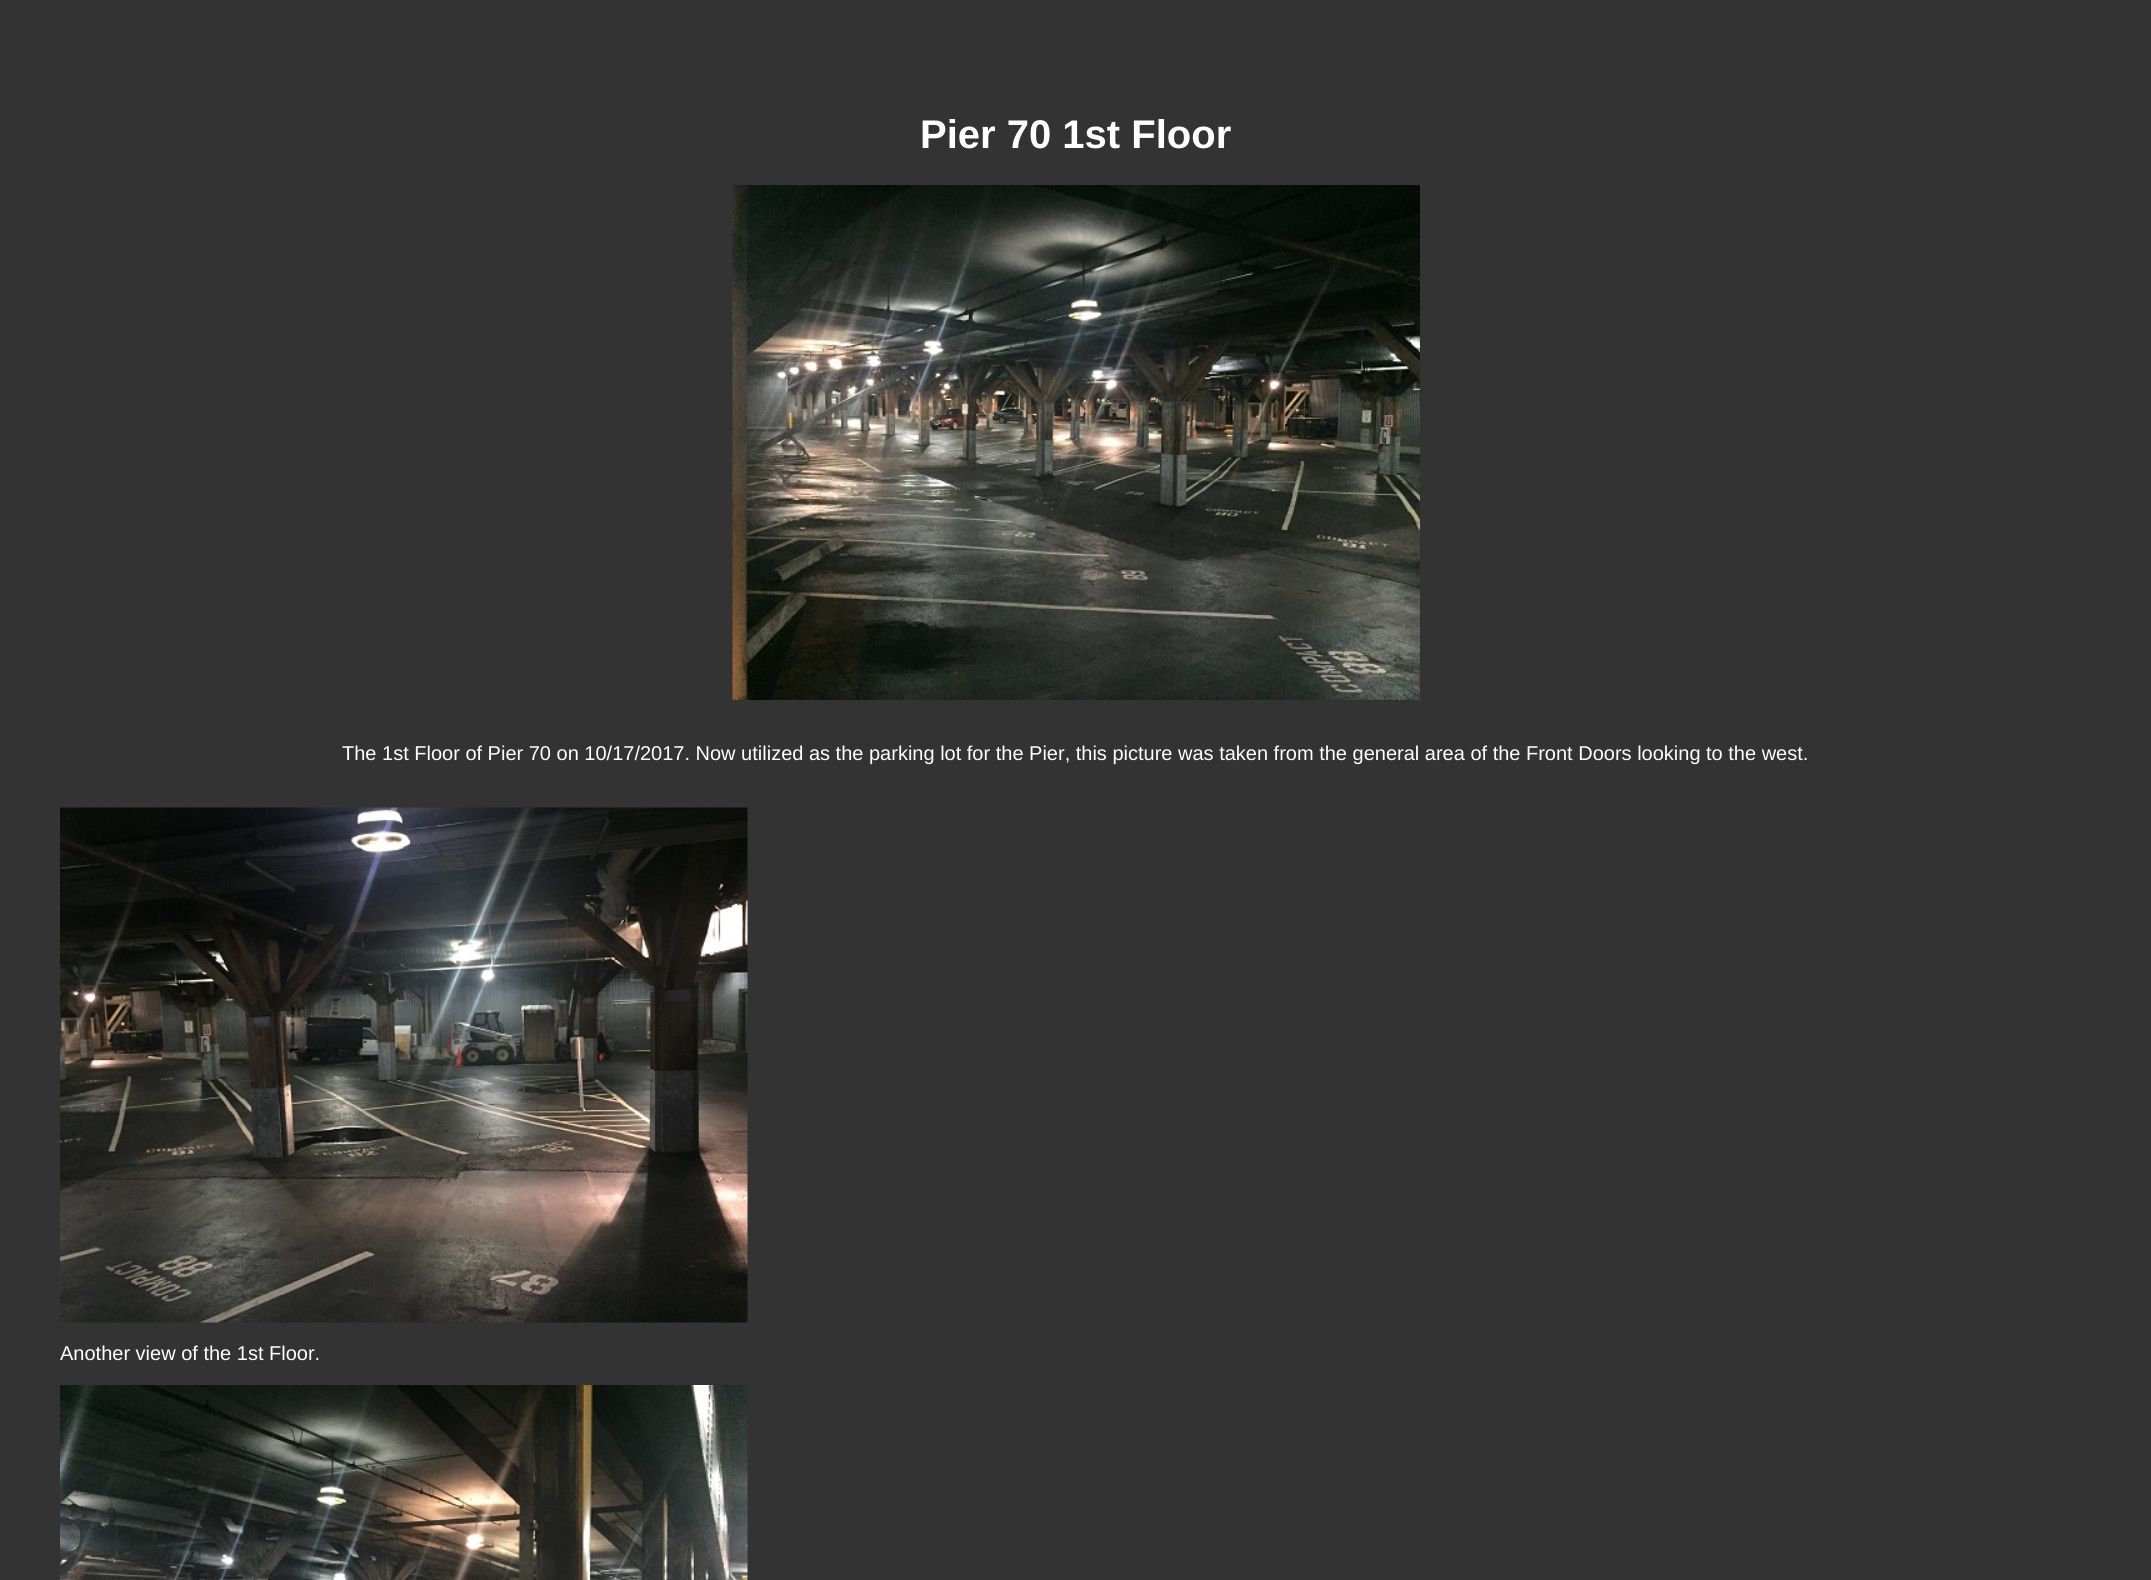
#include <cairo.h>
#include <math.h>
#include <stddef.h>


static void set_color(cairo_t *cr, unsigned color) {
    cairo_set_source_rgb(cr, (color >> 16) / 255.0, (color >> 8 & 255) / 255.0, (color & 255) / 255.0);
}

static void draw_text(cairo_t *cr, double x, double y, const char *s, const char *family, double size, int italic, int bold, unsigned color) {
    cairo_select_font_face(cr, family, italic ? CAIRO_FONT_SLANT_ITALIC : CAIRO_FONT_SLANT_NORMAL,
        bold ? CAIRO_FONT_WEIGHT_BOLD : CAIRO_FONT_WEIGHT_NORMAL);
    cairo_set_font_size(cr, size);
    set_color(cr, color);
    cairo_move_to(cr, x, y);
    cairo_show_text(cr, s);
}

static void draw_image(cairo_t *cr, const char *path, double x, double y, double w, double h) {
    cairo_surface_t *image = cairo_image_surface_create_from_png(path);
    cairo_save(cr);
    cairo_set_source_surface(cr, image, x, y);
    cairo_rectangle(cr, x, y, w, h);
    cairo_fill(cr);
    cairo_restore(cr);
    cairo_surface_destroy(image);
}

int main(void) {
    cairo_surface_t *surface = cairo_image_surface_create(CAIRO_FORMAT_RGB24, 2151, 1580);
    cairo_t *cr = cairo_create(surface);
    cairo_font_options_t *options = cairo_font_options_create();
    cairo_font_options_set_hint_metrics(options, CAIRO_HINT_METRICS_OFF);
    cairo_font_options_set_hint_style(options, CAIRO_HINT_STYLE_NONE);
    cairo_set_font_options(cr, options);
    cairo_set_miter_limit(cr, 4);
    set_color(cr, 0x333333);
    cairo_paint(cr);
    draw_text(cr, 920, 148, "Pier 70 1st Floor", "Liberation Sans", 40, 0, 1, 0xFFFFFF);
    draw_image(cr, "assets/img1.png", 732, 185, 688, 515);
    draw_text(cr, 342, 760, "The 1st Floor of Pier 70 on 10/17/2017. Now utilized as the parking lot for the Pier, this picture was taken from the general area of the Front Doors looking to the west.", "Liberation Sans", 20, 0, 0, 0xFFFFFF);
    draw_image(cr, "assets/img2.png", 60, 807, 688, 516);
    draw_text(cr, 60, 1360, "Another view of the 1st Floor.", "Liberation Sans", 20, 0, 0, 0xFFFFFF);
    draw_image(cr, "assets/img3.png", 60, 1385, 688, 195);
    cairo_surface_write_to_png(surface, "output.png");
    cairo_font_options_destroy(options);
    cairo_destroy(cr);
    cairo_surface_destroy(surface);
    return 0;
}
